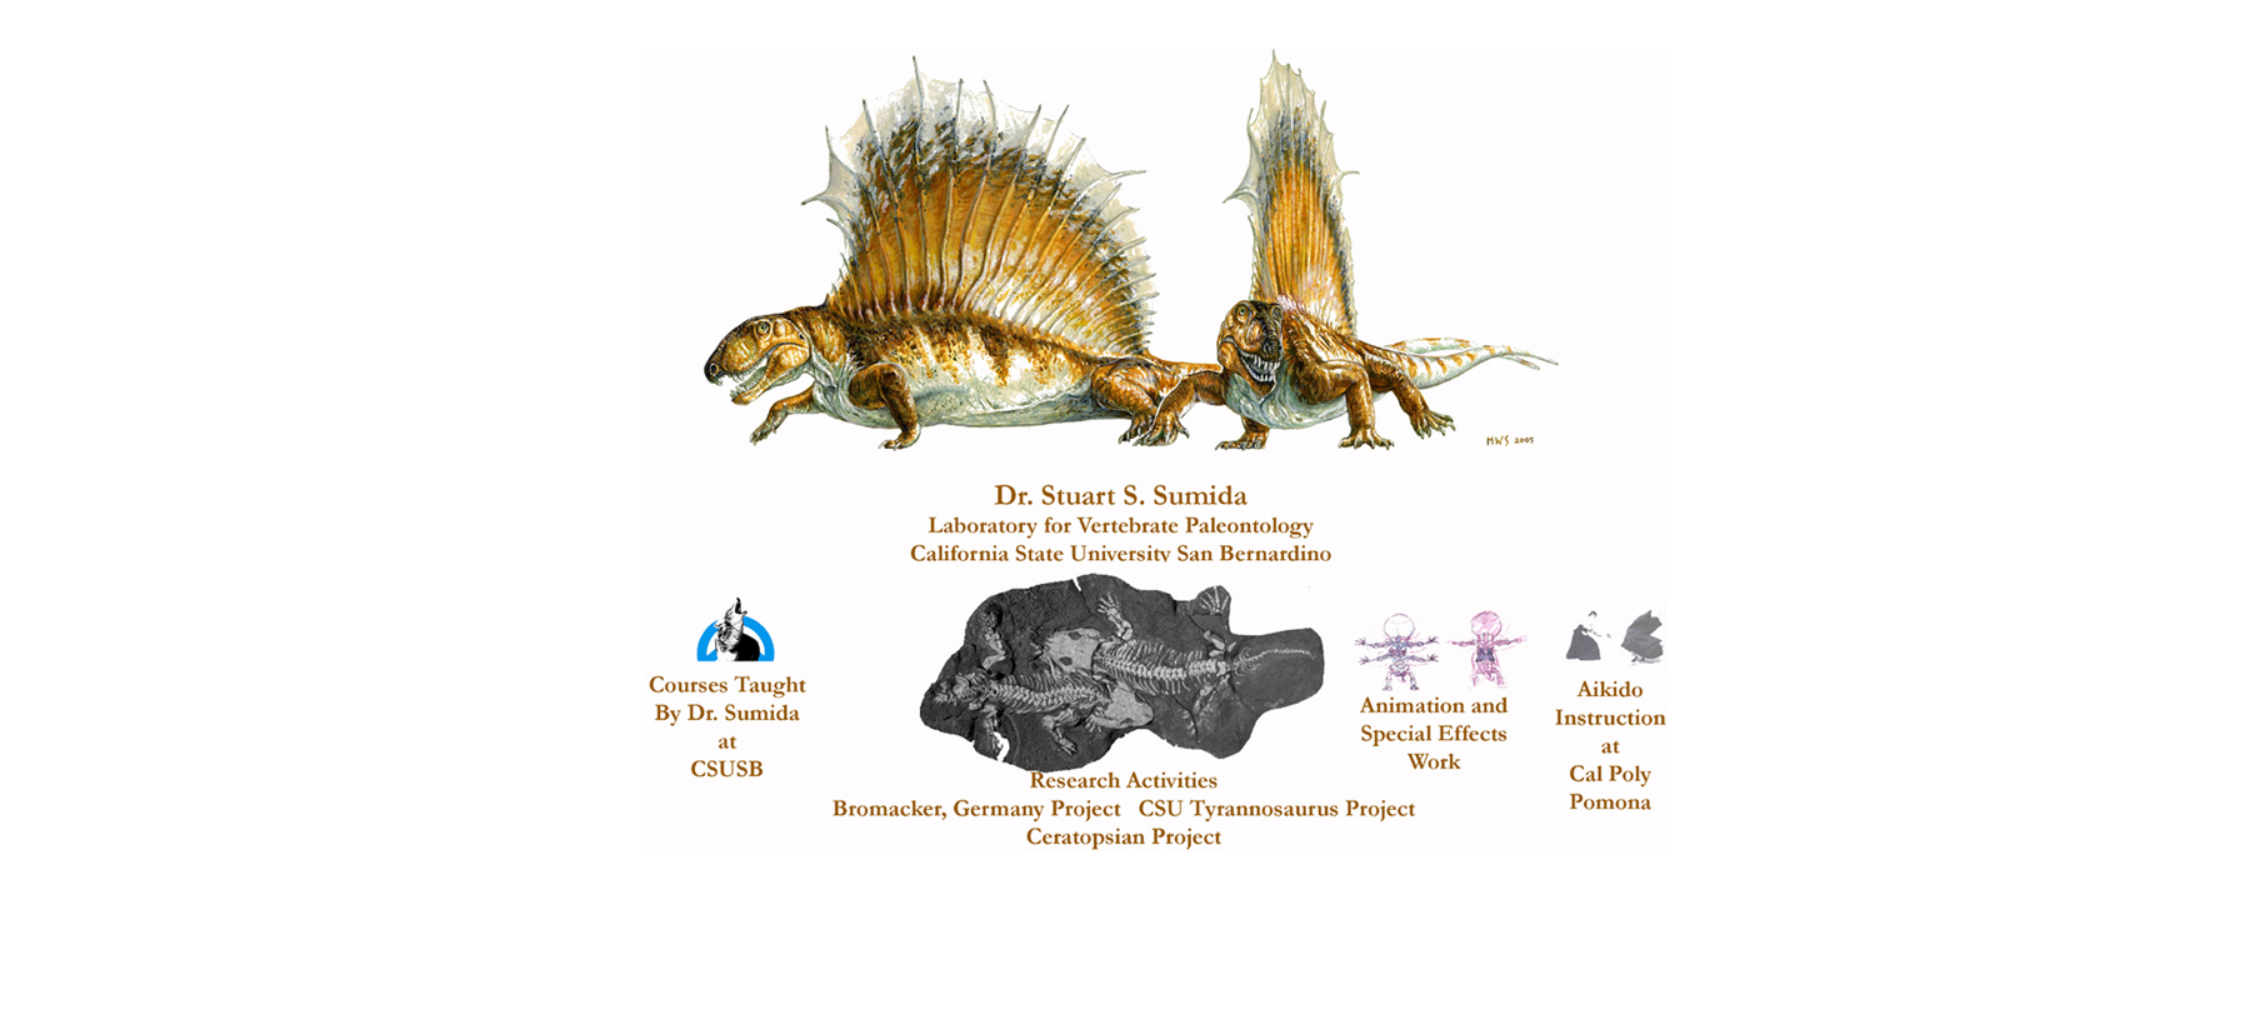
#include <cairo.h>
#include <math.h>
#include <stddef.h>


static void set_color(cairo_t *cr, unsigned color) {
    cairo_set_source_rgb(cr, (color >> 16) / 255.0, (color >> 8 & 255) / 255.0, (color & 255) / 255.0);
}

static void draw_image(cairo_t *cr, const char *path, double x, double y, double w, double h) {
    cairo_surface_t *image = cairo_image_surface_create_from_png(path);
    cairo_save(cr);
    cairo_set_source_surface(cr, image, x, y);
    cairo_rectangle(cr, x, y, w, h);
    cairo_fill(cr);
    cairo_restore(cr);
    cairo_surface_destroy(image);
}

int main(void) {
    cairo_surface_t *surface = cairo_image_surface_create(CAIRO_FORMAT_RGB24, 2266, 1015);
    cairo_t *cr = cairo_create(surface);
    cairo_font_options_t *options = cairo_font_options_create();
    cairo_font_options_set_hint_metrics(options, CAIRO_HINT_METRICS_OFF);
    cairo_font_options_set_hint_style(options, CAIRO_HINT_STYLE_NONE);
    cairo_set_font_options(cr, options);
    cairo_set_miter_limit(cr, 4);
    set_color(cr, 0xFFFFFF);
    cairo_paint(cr);
    draw_image(cr, "assets/img1.png", 643, 48, 1024, 803);
    cairo_surface_write_to_png(surface, "output.png");
    cairo_font_options_destroy(options);
    cairo_destroy(cr);
    cairo_surface_destroy(surface);
    return 0;
}
